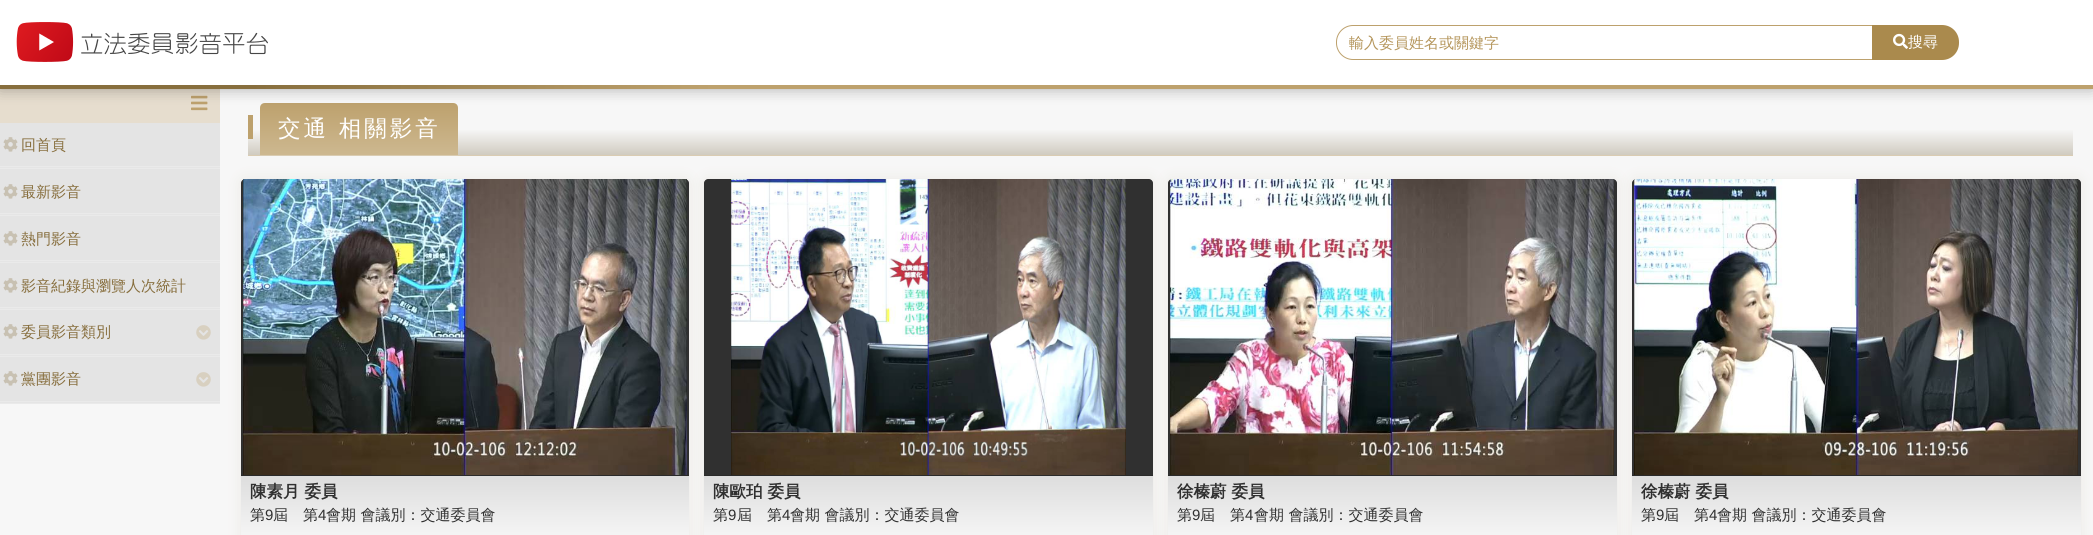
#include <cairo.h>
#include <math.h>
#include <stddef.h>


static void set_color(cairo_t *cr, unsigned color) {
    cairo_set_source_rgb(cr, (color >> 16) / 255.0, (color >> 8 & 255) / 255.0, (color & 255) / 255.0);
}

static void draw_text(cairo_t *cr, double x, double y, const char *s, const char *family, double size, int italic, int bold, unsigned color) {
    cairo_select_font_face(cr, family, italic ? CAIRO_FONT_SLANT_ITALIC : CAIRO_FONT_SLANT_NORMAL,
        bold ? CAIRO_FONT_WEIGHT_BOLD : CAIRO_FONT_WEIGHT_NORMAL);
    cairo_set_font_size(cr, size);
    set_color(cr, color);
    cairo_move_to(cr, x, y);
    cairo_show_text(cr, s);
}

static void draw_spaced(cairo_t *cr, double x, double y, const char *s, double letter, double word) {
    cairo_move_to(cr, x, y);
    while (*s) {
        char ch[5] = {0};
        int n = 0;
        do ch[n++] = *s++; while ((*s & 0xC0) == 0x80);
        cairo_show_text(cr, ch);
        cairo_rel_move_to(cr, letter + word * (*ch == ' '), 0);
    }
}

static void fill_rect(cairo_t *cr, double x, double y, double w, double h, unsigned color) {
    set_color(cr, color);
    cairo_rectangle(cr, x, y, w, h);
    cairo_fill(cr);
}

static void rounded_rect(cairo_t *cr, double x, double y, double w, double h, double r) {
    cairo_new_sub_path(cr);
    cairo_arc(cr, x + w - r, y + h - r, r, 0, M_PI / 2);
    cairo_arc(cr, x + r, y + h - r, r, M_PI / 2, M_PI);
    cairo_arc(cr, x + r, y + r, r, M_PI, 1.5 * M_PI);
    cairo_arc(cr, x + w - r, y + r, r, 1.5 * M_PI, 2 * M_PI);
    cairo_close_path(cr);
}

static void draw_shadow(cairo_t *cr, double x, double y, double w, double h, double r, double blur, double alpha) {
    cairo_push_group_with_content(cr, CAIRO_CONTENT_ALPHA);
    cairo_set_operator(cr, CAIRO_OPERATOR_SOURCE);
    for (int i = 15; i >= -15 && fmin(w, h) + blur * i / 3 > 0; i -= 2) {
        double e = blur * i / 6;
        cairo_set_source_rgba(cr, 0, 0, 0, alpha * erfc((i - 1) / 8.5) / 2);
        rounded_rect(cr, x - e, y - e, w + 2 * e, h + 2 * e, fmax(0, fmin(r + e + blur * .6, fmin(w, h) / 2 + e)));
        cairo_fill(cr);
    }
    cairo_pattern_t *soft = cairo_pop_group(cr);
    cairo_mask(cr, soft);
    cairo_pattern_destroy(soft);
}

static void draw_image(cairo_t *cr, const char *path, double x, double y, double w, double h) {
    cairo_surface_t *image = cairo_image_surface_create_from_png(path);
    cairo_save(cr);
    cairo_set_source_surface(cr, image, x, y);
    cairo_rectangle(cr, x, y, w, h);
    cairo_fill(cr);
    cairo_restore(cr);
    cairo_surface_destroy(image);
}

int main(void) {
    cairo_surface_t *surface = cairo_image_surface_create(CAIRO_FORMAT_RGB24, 2093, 535);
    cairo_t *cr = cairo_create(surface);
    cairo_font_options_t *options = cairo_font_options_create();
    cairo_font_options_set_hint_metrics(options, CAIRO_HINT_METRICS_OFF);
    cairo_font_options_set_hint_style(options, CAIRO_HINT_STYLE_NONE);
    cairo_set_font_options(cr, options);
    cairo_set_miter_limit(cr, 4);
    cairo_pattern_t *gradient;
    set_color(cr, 0xF7F7F7);
    cairo_paint(cr);
    fill_rect(cr, 0, 89, 220, 34, 0xE6DDCE);
    draw_image(cr, "assets/img3.png", 191, 95, 17, 16);
    gradient = cairo_pattern_create_linear(1161, 103, 1161, 155);
    cairo_pattern_add_color_stop_rgba(gradient, 0.5, 0.969, 0.969, 0.969, 1);
    cairo_pattern_add_color_stop_rgba(gradient, 1, 0.816, 0.796, 0.753, 1);
    cairo_set_source(cr, gradient);
    cairo_pattern_destroy(gradient);
    cairo_rectangle(cr, 248, 130, 1825, 25);
    cairo_fill(cr);
    gradient = cairo_pattern_create_linear(359, 103, 359, 155);
    cairo_pattern_add_color_stop_rgba(gradient, 0, 0.741, 0.631, 0.427, 1);
    cairo_pattern_add_color_stop_rgba(gradient, 1, 0.804, 0.722, 0.565, 1);
    cairo_set_source(cr, gradient);
    cairo_pattern_destroy(gradient);
    cairo_new_path(cr);
    cairo_move_to(cr, 265, 103);
    cairo_line_to(cr, 453, 103);
    cairo_curve_to(cr, 456, 103, 458, 105, 458, 108);
    cairo_line_to(cr, 458, 155);
    cairo_line_to(cr, 260, 155);
    cairo_line_to(cr, 260, 108);
    cairo_curve_to(cr, 260, 105, 262, 103, 265, 103);
    cairo_close_path(cr);
    cairo_fill(cr);
    set_color(cr, 0x000000);
    draw_shadow(cr, 0, 0, 2093, 89, 0, 7.5, 0.3);
    gradient = cairo_pattern_create_linear(0, 45, 2093, 44);
    cairo_pattern_add_color_stop_rgba(gradient, 0.12, 0.529, 0.431, 0.239, 1);
    cairo_pattern_add_color_stop_rgba(gradient, 0.34, 0.741, 0.631, 0.427, 1);
    cairo_set_source(cr, gradient);
    cairo_pattern_destroy(gradient);
    cairo_rectangle(cr, 0, 85, 2093, 4);
    cairo_fill(cr);
    fill_rect(cr, 0, 0, 2093, 85, 0xFFFFFF);
    draw_image(cr, "assets/img1.png", 16, 22, 252, 40);
    cairo_new_path(cr);
    cairo_move_to(cr, 1353, 25.5);
    cairo_line_to(cr, 1872.5, 25.5);
    cairo_line_to(cr, 1872.5, 59.5);
    cairo_line_to(cr, 1353, 59.5);
    cairo_curve_to(cr, 1344, 59.5, 1336.5, 52, 1336.5, 43);
    cairo_line_to(cr, 1336.5, 42);
    cairo_curve_to(cr, 1336.5, 33, 1344, 25.5, 1353, 25.5);
    cairo_close_path(cr);
    set_color(cr, 0xBDA16D);
    cairo_set_line_width(cr, 1);
    cairo_stroke(cr);
    draw_text(cr, 1349, 48, "輸入委員姓名或關鍵字", "WenQuanYi Zen Hei Medium", 15, 0, 0, 0xB5965C);
    set_color(cr, 0xAA8A4D);
    cairo_new_path(cr);
    cairo_move_to(cr, 1872, 25);
    cairo_line_to(cr, 1942, 25);
    cairo_curve_to(cr, 1951.5, 25, 1959, 32.5, 1959, 42);
    cairo_line_to(cr, 1959, 43);
    cairo_curve_to(cr, 1959, 52.5, 1951.5, 60, 1942, 60);
    cairo_line_to(cr, 1872, 60);
    cairo_close_path(cr);
    cairo_fill(cr);
    draw_image(cr, "assets/img2.png", 1893, 33, 15, 16);
    draw_text(cr, 1908, 47, "搜尋", "WenQuanYi Zen Hei Medium", 15, 0, 0, 0xFFFFFF);
    fill_rect(cr, 0, 166, 220, 238, 0xEAEAEA);
    fill_rect(cr, 0, 167, 220, 1, 0xE5E5E5);
    fill_rect(cr, 0, 123, 220, 43, 0xE4E4E4);
    draw_image(cr, "assets/img4.png", 3, 137, 15, 15);
    draw_text(cr, 21, 150, "回首頁", "WenQuanYi Zen Hei Medium", 15, 0, 0, 0x876E3D);
    fill_rect(cr, 0, 214, 220, 1, 0xE5E5E5);
    fill_rect(cr, 0, 169, 220, 44, 0xE4E4E4);
    draw_image(cr, "assets/img4.png", 3, 184, 15, 15);
    draw_text(cr, 21, 197, "最新影音", "WenQuanYi Zen Hei Medium", 15, 0, 0, 0x876E3D);
    fill_rect(cr, 0, 261, 220, 1, 0xE5E5E5);
    fill_rect(cr, 0, 216, 220, 44, 0xE4E4E4);
    draw_image(cr, "assets/img4.png", 3, 231, 15, 15);
    draw_text(cr, 21, 244, "熱門影音", "WenQuanYi Zen Hei Medium", 15, 0, 0, 0x876E3D);
    fill_rect(cr, 0, 308, 220, 1, 0xE5E5E5);
    fill_rect(cr, 0, 263, 220, 44, 0xE4E4E4);
    draw_image(cr, "assets/img4.png", 3, 278, 15, 15);
    draw_text(cr, 21, 291, "影音紀錄與瀏覽人次統計", "WenQuanYi Zen Hei Medium", 15, 0, 0, 0x876E3D);
    fill_rect(cr, 0, 355, 220, 1, 0xE5E5E5);
    fill_rect(cr, 0, 310, 220, 44, 0xE4E4E4);
    draw_image(cr, "assets/img4.png", 3, 324, 15, 15);
    draw_text(cr, 21, 337, "委員影音類別", "WenQuanYi Zen Hei Medium", 15, 0, 0, 0x876E3D);
    draw_image(cr, "assets/img5.png", 196, 325, 15, 15);
    fill_rect(cr, 0, 402, 220, 1, 0xE5E5E5);
    fill_rect(cr, 0, 357, 220, 44, 0xE4E4E4);
    draw_image(cr, "assets/img4.png", 3, 371, 15, 15);
    draw_text(cr, 21, 384, "黨團影音", "WenQuanYi Zen Hei Medium", 15, 0, 0, 0x876E3D);
    draw_image(cr, "assets/img5.png", 196, 372, 15, 15);
    fill_rect(cr, 248, 155, 1825, 1, 0xDACCB2);
    fill_rect(cr, 248, 115, 5, 24, 0xBDA16D);
    cairo_set_font_size(cr, 22.5);
    set_color(cr, 0xFFFFFF);
    draw_spaced(cr, 278, 136, "交通 相關影音", 3, 0);
    set_color(cr, 0x876E3D);
    draw_shadow(cr, 241, 179, 448, 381, 4, 7, 0.1);
    set_color(cr, 0x303030);
    cairo_new_path(cr);
    cairo_move_to(cr, 245, 179);
    cairo_line_to(cr, 685, 179);
    cairo_curve_to(cr, 687, 179, 689, 181, 689, 183);
    cairo_line_to(cr, 689, 535);
    cairo_line_to(cr, 241, 535);
    cairo_line_to(cr, 241, 183);
    cairo_curve_to(cr, 241, 181, 243, 179, 245, 179);
    cairo_close_path(cr);
    cairo_fill(cr);
    draw_image(cr, "assets/img6.png", 243, 179, 444, 296);
    fill_rect(cr, 241, 475, 448, 1, 0x2A2A2A);
    gradient = cairo_pattern_create_linear(465, 476, 465, 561);
    cairo_pattern_add_color_stop_rgba(gradient, 0, 0.867, 0.867, 0.867, 1);
    cairo_pattern_add_color_stop_rgba(gradient, 1, 1, 1, 1, 1);
    cairo_set_source(cr, gradient);
    cairo_pattern_destroy(gradient);
    cairo_rectangle(cr, 241, 476, 448, 59);
    cairo_fill(cr);
    draw_text(cr, 250, 497, "陳素月 委員", "WenQuanYi Zen Hei", 16.5, 0, 1, 0x303030);
    draw_text(cr, 250, 520, "第", "WenQuanYi Zen Hei Medium", 15, 0, 0, 0x303030);
    draw_text(cr, 265, 520, "9", "Liberation Sans", 15, 0, 0, 0x303030);
    draw_text(cr, 273, 520, "屆　第", "WenQuanYi Zen Hei Medium", 15, 0, 0, 0x303030);
    draw_text(cr, 318, 520, "4", "Liberation Sans", 15, 0, 0, 0x303030);
    draw_text(cr, 326, 520, "會期 會議別：交通委員會", "WenQuanYi Zen Hei Medium", 15, 0, 0, 0x303030);
    set_color(cr, 0x876E3D);
    draw_shadow(cr, 704, 179, 449, 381, 4, 7, 0.1);
    set_color(cr, 0x303030);
    cairo_new_path(cr);
    cairo_move_to(cr, 708, 179);
    cairo_line_to(cr, 1149, 179);
    cairo_curve_to(cr, 1151, 179, 1153, 181, 1153, 183);
    cairo_line_to(cr, 1153, 535);
    cairo_line_to(cr, 704, 535);
    cairo_line_to(cr, 704, 183);
    cairo_curve_to(cr, 704, 181, 706, 179, 708, 179);
    cairo_close_path(cr);
    cairo_fill(cr);
    draw_image(cr, "assets/img7.png", 731, 179, 395, 296);
    fill_rect(cr, 704, 475, 449, 1, 0x2A2A2A);
    gradient = cairo_pattern_create_linear(929, 476, 929, 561);
    cairo_pattern_add_color_stop_rgba(gradient, 0, 0.867, 0.867, 0.867, 1);
    cairo_pattern_add_color_stop_rgba(gradient, 1, 1, 1, 1, 1);
    cairo_set_source(cr, gradient);
    cairo_pattern_destroy(gradient);
    cairo_rectangle(cr, 704, 476, 449, 59);
    cairo_fill(cr);
    draw_text(cr, 713, 497, "陳歐珀 委員", "WenQuanYi Zen Hei", 16.5, 0, 1, 0x303030);
    draw_text(cr, 713, 520, "第", "WenQuanYi Zen Hei Medium", 15, 0, 0, 0x303030);
    draw_text(cr, 728, 520, "9", "Liberation Sans", 15, 0, 0, 0x303030);
    draw_text(cr, 737, 520, "屆　第", "WenQuanYi Zen Hei Medium", 15, 0, 0, 0x303030);
    draw_text(cr, 782, 520, "4", "Liberation Sans", 15, 0, 0, 0x303030);
    draw_text(cr, 790, 520, "會期 會議別：交通委員會", "WenQuanYi Zen Hei Medium", 15, 0, 0, 0x303030);
    set_color(cr, 0x876E3D);
    draw_shadow(cr, 1168, 179, 449, 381, 4, 7, 0.1);
    set_color(cr, 0x303030);
    cairo_new_path(cr);
    cairo_move_to(cr, 1172, 179);
    cairo_line_to(cr, 1613, 179);
    cairo_curve_to(cr, 1615, 179, 1617, 181, 1617, 183);
    cairo_line_to(cr, 1617, 535);
    cairo_line_to(cr, 1168, 535);
    cairo_line_to(cr, 1168, 183);
    cairo_curve_to(cr, 1168, 181, 1170, 179, 1172, 179);
    cairo_close_path(cr);
    cairo_fill(cr);
    draw_image(cr, "assets/img8.png", 1170, 179, 444, 296);
    fill_rect(cr, 1168, 475, 449, 1, 0x2A2A2A);
    gradient = cairo_pattern_create_linear(1393, 476, 1393, 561);
    cairo_pattern_add_color_stop_rgba(gradient, 0, 0.867, 0.867, 0.867, 1);
    cairo_pattern_add_color_stop_rgba(gradient, 1, 1, 1, 1, 1);
    cairo_set_source(cr, gradient);
    cairo_pattern_destroy(gradient);
    cairo_rectangle(cr, 1168, 476, 449, 59);
    cairo_fill(cr);
    draw_text(cr, 1177, 497, "徐榛蔚 委員", "WenQuanYi Zen Hei", 16.5, 0, 1, 0x303030);
    draw_text(cr, 1177, 520, "第", "WenQuanYi Zen Hei Medium", 15, 0, 0, 0x303030);
    draw_text(cr, 1192, 520, "9", "Liberation Sans", 15, 0, 0, 0x303030);
    draw_text(cr, 1200, 520, "屆　第", "WenQuanYi Zen Hei Medium", 15, 0, 0, 0x303030);
    draw_text(cr, 1245, 520, "4", "Liberation Sans", 15, 0, 0, 0x303030);
    draw_text(cr, 1254, 520, "會期 會議別：交通委員會", "WenQuanYi Zen Hei Medium", 15, 0, 0, 0x303030);
    set_color(cr, 0x876E3D);
    draw_shadow(cr, 1632, 179, 449, 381, 4, 7, 0.1);
    set_color(cr, 0x303030);
    cairo_new_path(cr);
    cairo_move_to(cr, 1636, 179);
    cairo_line_to(cr, 2077, 179);
    cairo_curve_to(cr, 2079, 179, 2081, 181, 2081, 183);
    cairo_line_to(cr, 2081, 535);
    cairo_line_to(cr, 1632, 535);
    cairo_line_to(cr, 1632, 183);
    cairo_curve_to(cr, 1632, 181, 1634, 179, 1636, 179);
    cairo_close_path(cr);
    cairo_fill(cr);
    draw_image(cr, "assets/img9.png", 1634, 179, 444, 296);
    fill_rect(cr, 1632, 475, 449, 1, 0x2A2A2A);
    gradient = cairo_pattern_create_linear(1857, 476, 1857, 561);
    cairo_pattern_add_color_stop_rgba(gradient, 0, 0.867, 0.867, 0.867, 1);
    cairo_pattern_add_color_stop_rgba(gradient, 1, 1, 1, 1, 1);
    cairo_set_source(cr, gradient);
    cairo_pattern_destroy(gradient);
    cairo_rectangle(cr, 1632, 476, 449, 59);
    cairo_fill(cr);
    draw_text(cr, 1641, 497, "徐榛蔚 委員", "WenQuanYi Zen Hei", 16.5, 0, 1, 0x303030);
    draw_text(cr, 1641, 520, "第", "WenQuanYi Zen Hei Medium", 15, 0, 0, 0x303030);
    draw_text(cr, 1656, 520, "9", "Liberation Sans", 15, 0, 0, 0x303030);
    draw_text(cr, 1664, 520, "屆　第", "WenQuanYi Zen Hei Medium", 15, 0, 0, 0x303030);
    draw_text(cr, 1709, 520, "4", "Liberation Sans", 15, 0, 0, 0x303030);
    draw_text(cr, 1717, 520, "會期 會議別：交通委員會", "WenQuanYi Zen Hei Medium", 15, 0, 0, 0x303030);
    cairo_surface_write_to_png(surface, "output.png");
    cairo_font_options_destroy(options);
    cairo_destroy(cr);
    cairo_surface_destroy(surface);
    return 0;
}
